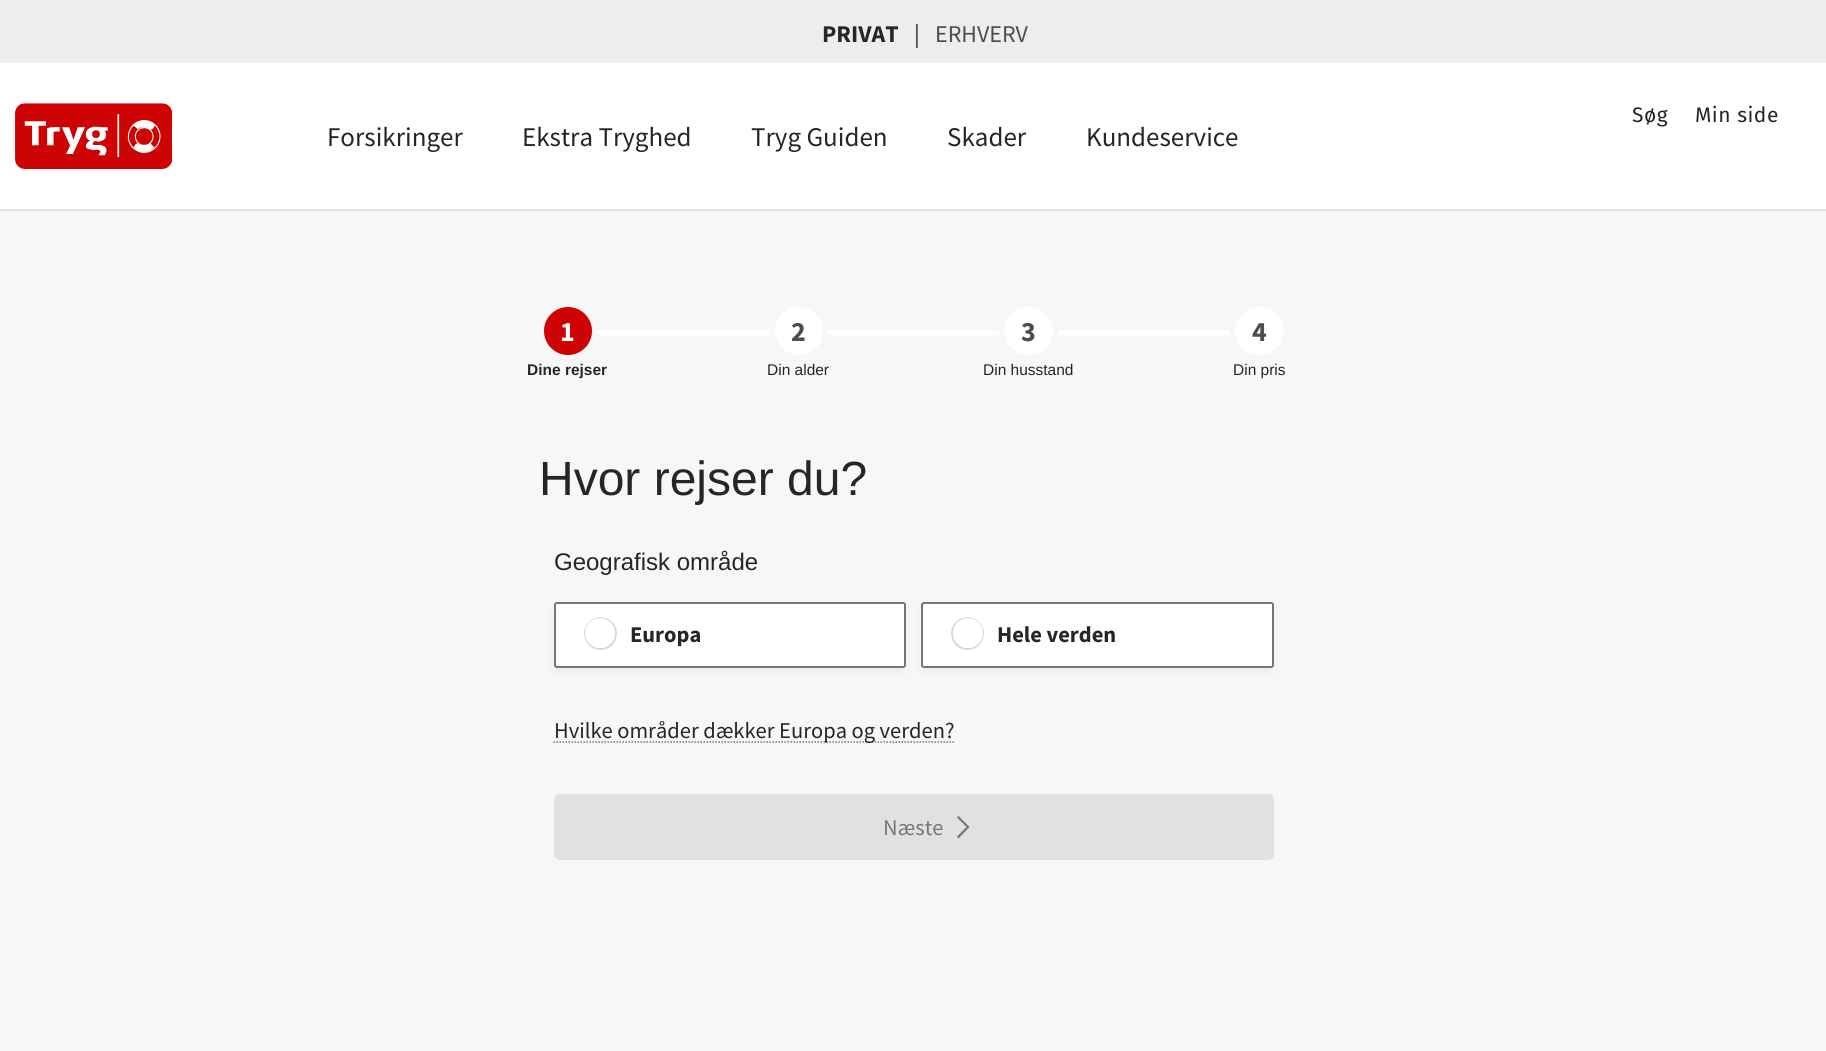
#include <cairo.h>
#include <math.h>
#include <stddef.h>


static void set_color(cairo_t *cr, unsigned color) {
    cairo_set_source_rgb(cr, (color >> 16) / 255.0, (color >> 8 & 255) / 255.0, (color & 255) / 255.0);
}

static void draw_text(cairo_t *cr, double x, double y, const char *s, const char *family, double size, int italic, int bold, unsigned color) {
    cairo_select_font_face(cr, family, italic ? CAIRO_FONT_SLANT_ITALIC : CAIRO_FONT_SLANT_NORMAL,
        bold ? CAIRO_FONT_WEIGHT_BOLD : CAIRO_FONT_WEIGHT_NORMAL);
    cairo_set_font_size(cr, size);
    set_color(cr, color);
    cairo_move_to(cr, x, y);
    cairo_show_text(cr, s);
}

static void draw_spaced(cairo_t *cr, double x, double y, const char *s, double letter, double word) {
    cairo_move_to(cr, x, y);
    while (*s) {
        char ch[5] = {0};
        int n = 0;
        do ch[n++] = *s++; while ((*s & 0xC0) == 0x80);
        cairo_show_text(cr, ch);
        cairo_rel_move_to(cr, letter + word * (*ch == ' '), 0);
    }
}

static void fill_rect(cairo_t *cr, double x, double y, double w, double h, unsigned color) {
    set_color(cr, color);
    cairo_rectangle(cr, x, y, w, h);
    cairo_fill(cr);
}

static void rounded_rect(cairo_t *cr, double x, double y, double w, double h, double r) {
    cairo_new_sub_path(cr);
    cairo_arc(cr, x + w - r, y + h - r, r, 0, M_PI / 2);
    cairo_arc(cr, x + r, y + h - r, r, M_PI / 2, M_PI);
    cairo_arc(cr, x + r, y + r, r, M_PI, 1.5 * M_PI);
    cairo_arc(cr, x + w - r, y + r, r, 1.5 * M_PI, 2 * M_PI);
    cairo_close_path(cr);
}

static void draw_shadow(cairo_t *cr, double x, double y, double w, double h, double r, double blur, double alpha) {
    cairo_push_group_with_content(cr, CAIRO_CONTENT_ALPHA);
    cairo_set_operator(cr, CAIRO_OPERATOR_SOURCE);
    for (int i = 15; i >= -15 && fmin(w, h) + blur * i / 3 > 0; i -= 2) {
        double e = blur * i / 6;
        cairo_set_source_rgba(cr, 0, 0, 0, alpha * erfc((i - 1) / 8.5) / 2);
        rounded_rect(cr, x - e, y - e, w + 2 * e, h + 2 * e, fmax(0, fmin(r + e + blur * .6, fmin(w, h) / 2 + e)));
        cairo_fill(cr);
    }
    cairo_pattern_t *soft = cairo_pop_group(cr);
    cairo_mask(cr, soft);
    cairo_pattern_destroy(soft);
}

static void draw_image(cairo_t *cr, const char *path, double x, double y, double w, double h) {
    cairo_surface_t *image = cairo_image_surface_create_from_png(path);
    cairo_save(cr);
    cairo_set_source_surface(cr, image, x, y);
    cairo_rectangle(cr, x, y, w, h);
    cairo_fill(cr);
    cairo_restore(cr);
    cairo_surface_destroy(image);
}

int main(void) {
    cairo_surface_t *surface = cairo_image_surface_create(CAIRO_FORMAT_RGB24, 1826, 1051);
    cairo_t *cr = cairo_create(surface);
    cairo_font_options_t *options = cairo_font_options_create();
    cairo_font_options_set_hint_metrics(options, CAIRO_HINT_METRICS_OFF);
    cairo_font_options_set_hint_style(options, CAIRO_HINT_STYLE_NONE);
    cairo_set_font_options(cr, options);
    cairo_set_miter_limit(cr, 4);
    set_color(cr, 0xFFFFFF);
    cairo_paint(cr);
    fill_rect(cr, 0, 209, 1826, 2, 0xE1E1E1);
    fill_rect(cr, 0, 0, 1826, 63, 0xEDEDED);
    draw_text(cr, 822, 42, "PRIVAT", "Source Sans Pro", 24, 0, 1, 0x262626);
    draw_text(cr, 914, 42, "|", "Source Sans Pro", 24, 0, 0, 0x262626);
    draw_text(cr, 935, 42, "ERHVERV", "Source Sans Pro", 24, 0, 0, 0x4D4D4D);
    draw_image(cr, "assets/img1.png", 15, 103, 157, 66);
    cairo_select_font_face(cr, "Fira Sans", CAIRO_FONT_SLANT_NORMAL, CAIRO_FONT_WEIGHT_NORMAL);
    cairo_set_font_size(cr, 21);
    set_color(cr, 0x262626);
    draw_spaced(cr, 1632, 122, "Søg", 0.5, 0);
    draw_spaced(cr, 1695, 122, "Min side", 0.5, 0);
    draw_text(cr, 327, 146, "Forsikringer", "Source Sans Pro", 27, 0, 0, 0x262626);
    draw_text(cr, 522, 146, "Ekstra Tryghed", "Source Sans Pro", 27, 0, 0, 0x262626);
    draw_text(cr, 751, 146, "Tryg Guiden", "Source Sans Pro", 27, 0, 0, 0x262626);
    draw_text(cr, 947, 146, "Skader", "Source Sans Pro", 27, 0, 0, 0x262626);
    draw_text(cr, 1086, 146, "Kundeservice", "Source Sans Pro", 27, 0, 0, 0x262626);
    fill_rect(cr, 0, 211, 1826, 840, 0xF7F7F7);
    fill_rect(cr, 596, 330, 635, 5, 0xFFFFFF);
    set_color(cr, 0xCE0303);
    cairo_new_path(cr);
    cairo_arc(cr, 568, 331, 26.5, 0, 2 * M_PI);
    cairo_fill_preserve(cr);
    set_color(cr, 0xF7F7F7);
    cairo_set_line_width(cr, 5);
    cairo_stroke(cr);
    draw_text(cr, 560, 341, "1", "Source Sans Pro", 28, 0, 1, 0xFFFFFF);
    draw_text(cr, 527, 375, "Dine rejser", "Liberation Sans", 15.5, 0, 1, 0x262626);
    set_color(cr, 0xFFFFFF);
    cairo_new_path(cr);
    cairo_arc(cr, 799, 331, 26.5, 0, 2 * M_PI);
    cairo_fill_preserve(cr);
    set_color(cr, 0xF7F7F7);
    cairo_stroke(cr);
    draw_text(cr, 791, 341, "2", "Source Sans Pro", 28, 0, 1, 0x4D4D4D);
    draw_text(cr, 767, 375, "Din alder", "Liberation Sans", 15.5, 0, 0, 0x262626);
    set_color(cr, 0xFFFFFF);
    rounded_rect(cr, 1001.5, 304.5, 54, 53, 26.5);
    cairo_fill_preserve(cr);
    set_color(cr, 0xF7F7F7);
    cairo_stroke(cr);
    draw_text(cr, 1021, 341, "3", "Source Sans Pro", 28, 0, 1, 0x4D4D4D);
    draw_text(cr, 983, 375, "Din husstand", "Liberation Sans", 15.5, 0, 0, 0x262626);
    set_color(cr, 0xFFFFFF);
    rounded_rect(cr, 1232.5, 304.5, 54, 53, 26.5);
    cairo_fill_preserve(cr);
    set_color(cr, 0xF7F7F7);
    cairo_stroke(cr);
    draw_text(cr, 1252, 341, "4", "Source Sans Pro", 28, 0, 1, 0x4D4D4D);
    draw_text(cr, 1233, 375, "Din pris", "Liberation Sans", 15.5, 0, 0, 0x262626);
    draw_text(cr, 539, 495, "Hvor rejser du?", "Liberation Sans", 48, 0, 0, 0x262626);
    draw_text(cr, 554, 570, "Geografisk område", "Liberation Sans", 24, 0, 0, 0x262626);
    set_color(cr, 0x262626);
    draw_shadow(cr, 554, 606, 352, 66, 3, 4, 0.05);
    set_color(cr, 0xFFFFFF);
    rounded_rect(cr, 555, 603, 350, 64, 2);
    cairo_fill_preserve(cr);
    set_color(cr, 0x767676);
    cairo_set_line_width(cr, 2);
    cairo_stroke(cr);
    cairo_arc(cr, 600.5, 633.5, 15.5, 0, 2 * M_PI);
    set_color(cr, 0xD9D9D9);
    cairo_stroke(cr);
    cairo_arc(cr, 600, 633, 11, 0, 2 * M_PI);
    set_color(cr, 0xFFFFFF);
    cairo_set_line_width(cr, 8);
    cairo_stroke(cr);
    draw_text(cr, 630, 642, "Europa", "Source Sans Pro", 22.5, 0, 1, 0x262626);
    set_color(cr, 0x262626);
    draw_shadow(cr, 921, 606, 353, 66, 3, 4, 0.05);
    set_color(cr, 0xFFFFFF);
    rounded_rect(cr, 922, 603, 351, 64, 2);
    cairo_fill_preserve(cr);
    set_color(cr, 0x767676);
    cairo_set_line_width(cr, 2);
    cairo_stroke(cr);
    cairo_arc(cr, 967.5, 633.5, 15.5, 0, 2 * M_PI);
    set_color(cr, 0xD9D9D9);
    cairo_stroke(cr);
    cairo_arc(cr, 968, 633, 11, 0, 2 * M_PI);
    set_color(cr, 0xFFFFFF);
    cairo_set_line_width(cr, 8);
    cairo_stroke(cr);
    draw_text(cr, 997, 642, "Hele verden", "Source Sans Pro", 22.5, 0, 1, 0x262626);
    cairo_new_path(cr);
    cairo_move_to(cr, 553.5, 742);
    cairo_line_to(cr, 954, 742);
    set_color(cr, 0x757575);
    cairo_set_line_width(cr, 1.5);
    cairo_set_dash(cr, (double[]){1.5, 1.5}, 2, 0);
    cairo_stroke(cr);
    draw_text(cr, 554, 738, "Hvilke områder dækker Europa og verden?", "Source Sans Pro", 22.5, 0, 0, 0x262626);
    set_color(cr, 0xE1E1E1);
    rounded_rect(cr, 554, 794, 720, 66, 6);
    cairo_fill(cr);
    draw_text(cr, 883, 835, "Næste", "Source Sans Pro", 22.5, 0, 0, 0x767676);
    cairo_new_path(cr);
    cairo_move_to(cr, 957, 836.5);
    cairo_line_to(cr, 958.5, 838.5);
    cairo_line_to(cr, 969.5, 827);
    cairo_line_to(cr, 958.5, 816);
    cairo_line_to(cr, 957, 817.5);
    cairo_line_to(cr, 966.5, 827);
    cairo_close_path(cr);
    cairo_fill(cr);
    cairo_surface_write_to_png(surface, "output.png");
    cairo_font_options_destroy(options);
    cairo_destroy(cr);
    cairo_surface_destroy(surface);
    return 0;
}
